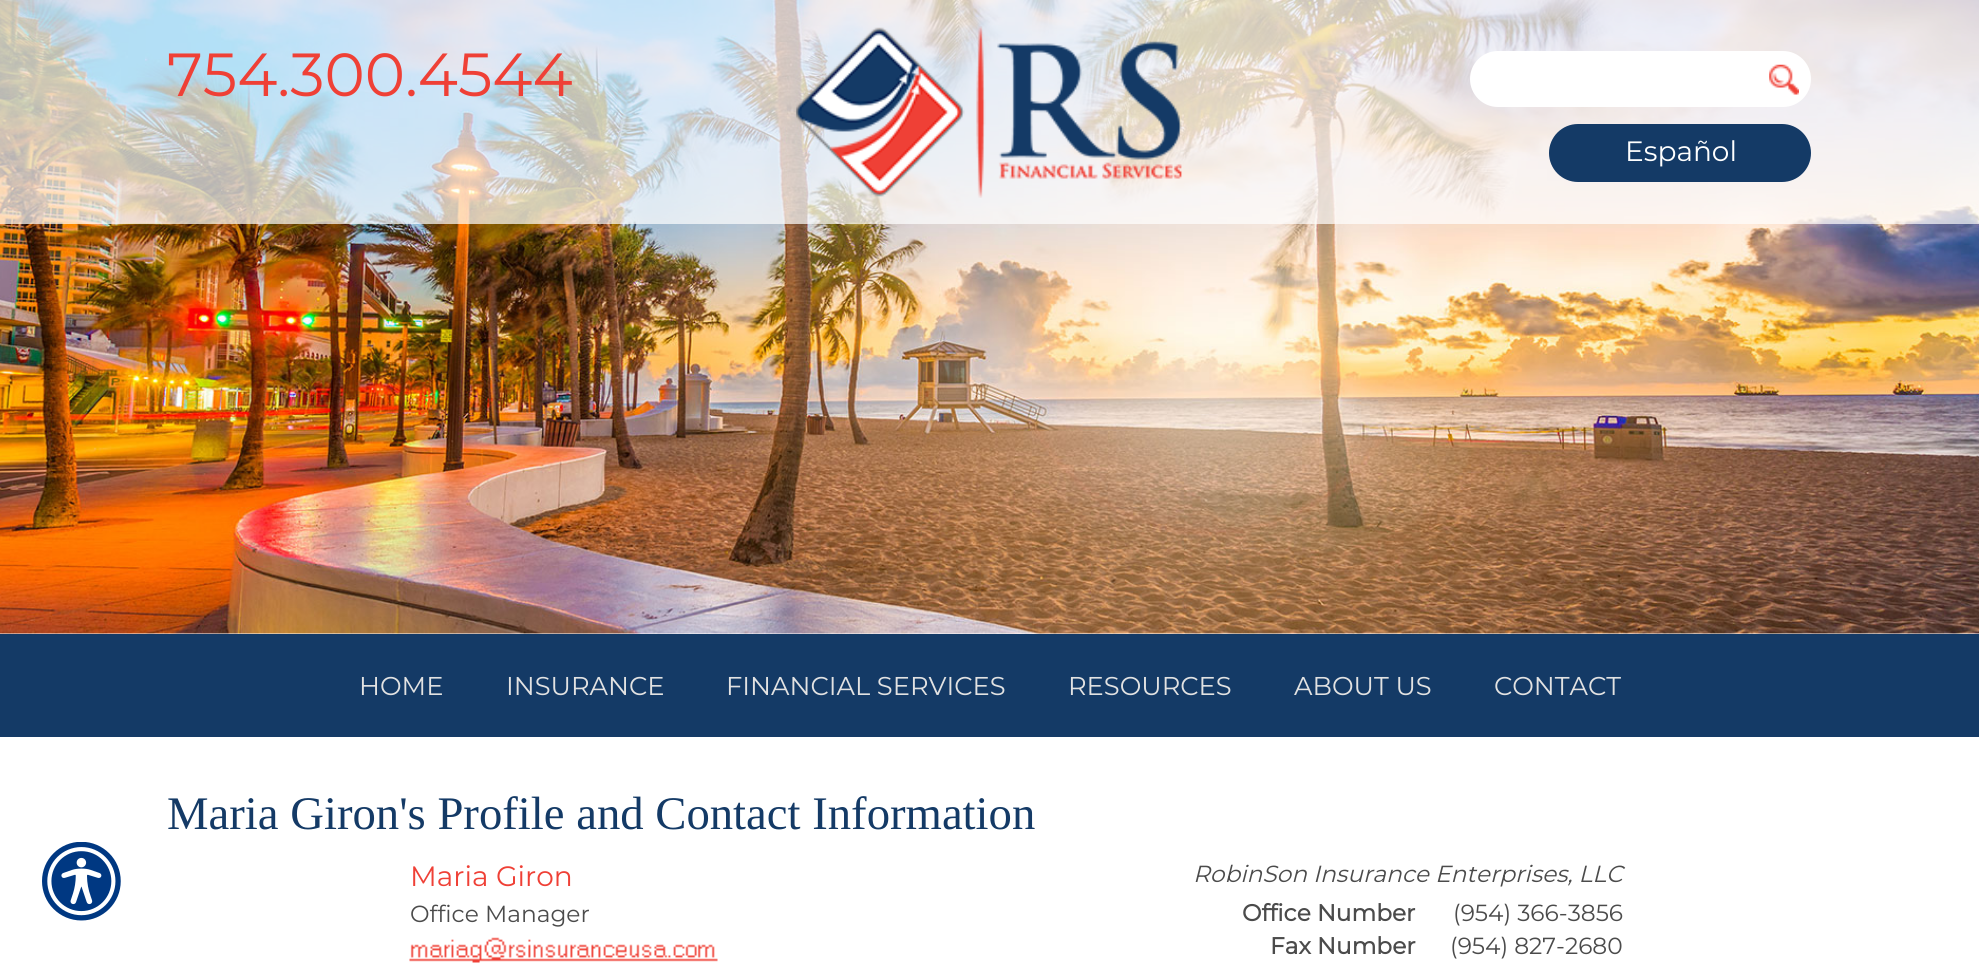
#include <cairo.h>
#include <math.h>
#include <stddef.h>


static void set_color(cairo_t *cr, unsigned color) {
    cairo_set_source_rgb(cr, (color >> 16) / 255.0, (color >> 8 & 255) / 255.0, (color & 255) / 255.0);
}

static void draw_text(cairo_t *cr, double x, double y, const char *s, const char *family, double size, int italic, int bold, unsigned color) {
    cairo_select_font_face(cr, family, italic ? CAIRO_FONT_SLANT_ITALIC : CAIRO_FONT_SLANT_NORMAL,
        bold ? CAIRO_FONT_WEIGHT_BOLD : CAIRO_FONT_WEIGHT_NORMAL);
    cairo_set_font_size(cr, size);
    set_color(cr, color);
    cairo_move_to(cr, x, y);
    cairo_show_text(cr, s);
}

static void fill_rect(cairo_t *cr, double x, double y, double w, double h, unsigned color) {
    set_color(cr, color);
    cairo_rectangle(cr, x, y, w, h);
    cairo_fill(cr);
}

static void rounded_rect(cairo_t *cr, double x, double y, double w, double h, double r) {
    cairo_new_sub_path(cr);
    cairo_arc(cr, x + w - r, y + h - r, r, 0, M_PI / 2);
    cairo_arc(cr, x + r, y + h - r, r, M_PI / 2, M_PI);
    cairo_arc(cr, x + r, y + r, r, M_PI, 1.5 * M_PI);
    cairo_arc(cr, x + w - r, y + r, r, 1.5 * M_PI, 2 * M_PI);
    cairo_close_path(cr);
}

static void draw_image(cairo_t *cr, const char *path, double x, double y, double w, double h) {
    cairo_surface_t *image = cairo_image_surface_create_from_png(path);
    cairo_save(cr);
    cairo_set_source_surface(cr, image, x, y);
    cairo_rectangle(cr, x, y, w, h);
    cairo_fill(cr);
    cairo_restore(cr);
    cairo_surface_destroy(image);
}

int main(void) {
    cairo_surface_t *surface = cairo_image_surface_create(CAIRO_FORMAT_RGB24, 1979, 971);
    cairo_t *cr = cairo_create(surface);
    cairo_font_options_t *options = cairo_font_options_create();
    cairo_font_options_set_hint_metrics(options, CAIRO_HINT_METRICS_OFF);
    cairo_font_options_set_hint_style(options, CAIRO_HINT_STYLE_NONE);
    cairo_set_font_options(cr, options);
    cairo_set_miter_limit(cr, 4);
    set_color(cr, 0xFFFFFF);
    cairo_paint(cr);
    draw_image(cr, "assets/img1.png", 42, 842, 79, 79);
    draw_image(cr, "assets/img2.png", 0, 0, 1979, 634);
    cairo_set_source_rgba(cr, 1, 1, 1, 0.7);
    cairo_rectangle(cr, 0, 0, 1979, 224);
    cairo_fill(cr);
    draw_text(cr, 167, 96, "754.300.4544", "Montserrat Thin", 60.75, 0, 0, 0xEF4036);
    draw_image(cr, "assets/img3.png", 796, 26, 386, 172);
    set_color(cr, 0xFFFFFF);
    rounded_rect(cr, 1471, 52, 339, 54, 27);
    cairo_fill_preserve(cr);
    cairo_stroke(cr);
    draw_image(cr, "assets/img4.png", 1769, 64, 30, 31);
    set_color(cr, 0x143A66);
    rounded_rect(cr, 1549, 124, 262, 58, 29);
    cairo_fill(cr);
    draw_text(cr, 1625, 161, "Español", "Montserrat Thin", 28, 0, 0, 0xFFFFFF);
    fill_rect(cr, 0, 634, 1979, 103, 0x143A66);
    draw_text(cr, 359, 695, "HOME", "Montserrat Thin", 25.75, 0, 0, 0xE2E2E2);
    draw_text(cr, 506, 695, "INSURANCE", "Montserrat Thin", 25.75, 0, 0, 0xE2E2E2);
    draw_text(cr, 726, 695, "FINANCIAL SERVICES", "Montserrat Thin", 25.75, 0, 0, 0xE2E2E2);
    draw_text(cr, 1068, 695, "RESOURCES", "Montserrat Thin", 25.75, 0, 0, 0xE2E2E2);
    draw_text(cr, 1294, 695, "ABOUT US", "Montserrat Thin", 25.75, 0, 0, 0xE2E2E2);
    draw_text(cr, 1494, 695, "CONTACT", "Montserrat Thin", 25.75, 0, 0, 0xE2E2E2);
    draw_text(cr, 167, 829, "Maria Giron's Profile and Contact Information", "Liberation Serif", 46.7, 0, 0, 0x143A66);
    draw_text(cr, 410, 886, "Maria Giron", "Montserrat Thin", 28, 0, 0, 0xEF4036);
    draw_text(cr, 410, 922, "Office Manager", "Montserrat Thin", 23.3, 0, 0, 0x4B4B4B);
    draw_image(cr, "assets/img5.png", 409, 937, 309, 26);
    draw_text(cr, 1193, 882, "RobinSon Insurance Enterprises, LLC", "Montserrat Thin", 23.3, 1, 0, 0x4B4B4B);
    draw_text(cr, 1242, 921, "Office Number", "Montserrat", 23.3, 0, 1, 0x4B4B4B);
    draw_text(cr, 1453, 921, "(954) 366-3856", "Montserrat Thin", 23.3, 0, 0, 0x4B4B4B);
    draw_text(cr, 1270, 954, "Fax Number", "Montserrat", 23.3, 0, 1, 0x4B4B4B);
    draw_text(cr, 1450, 954, "(954) 827-2680", "Montserrat Thin", 23.3, 0, 0, 0x4B4B4B);
    cairo_surface_write_to_png(surface, "output.png");
    cairo_font_options_destroy(options);
    cairo_destroy(cr);
    cairo_surface_destroy(surface);
    return 0;
}
